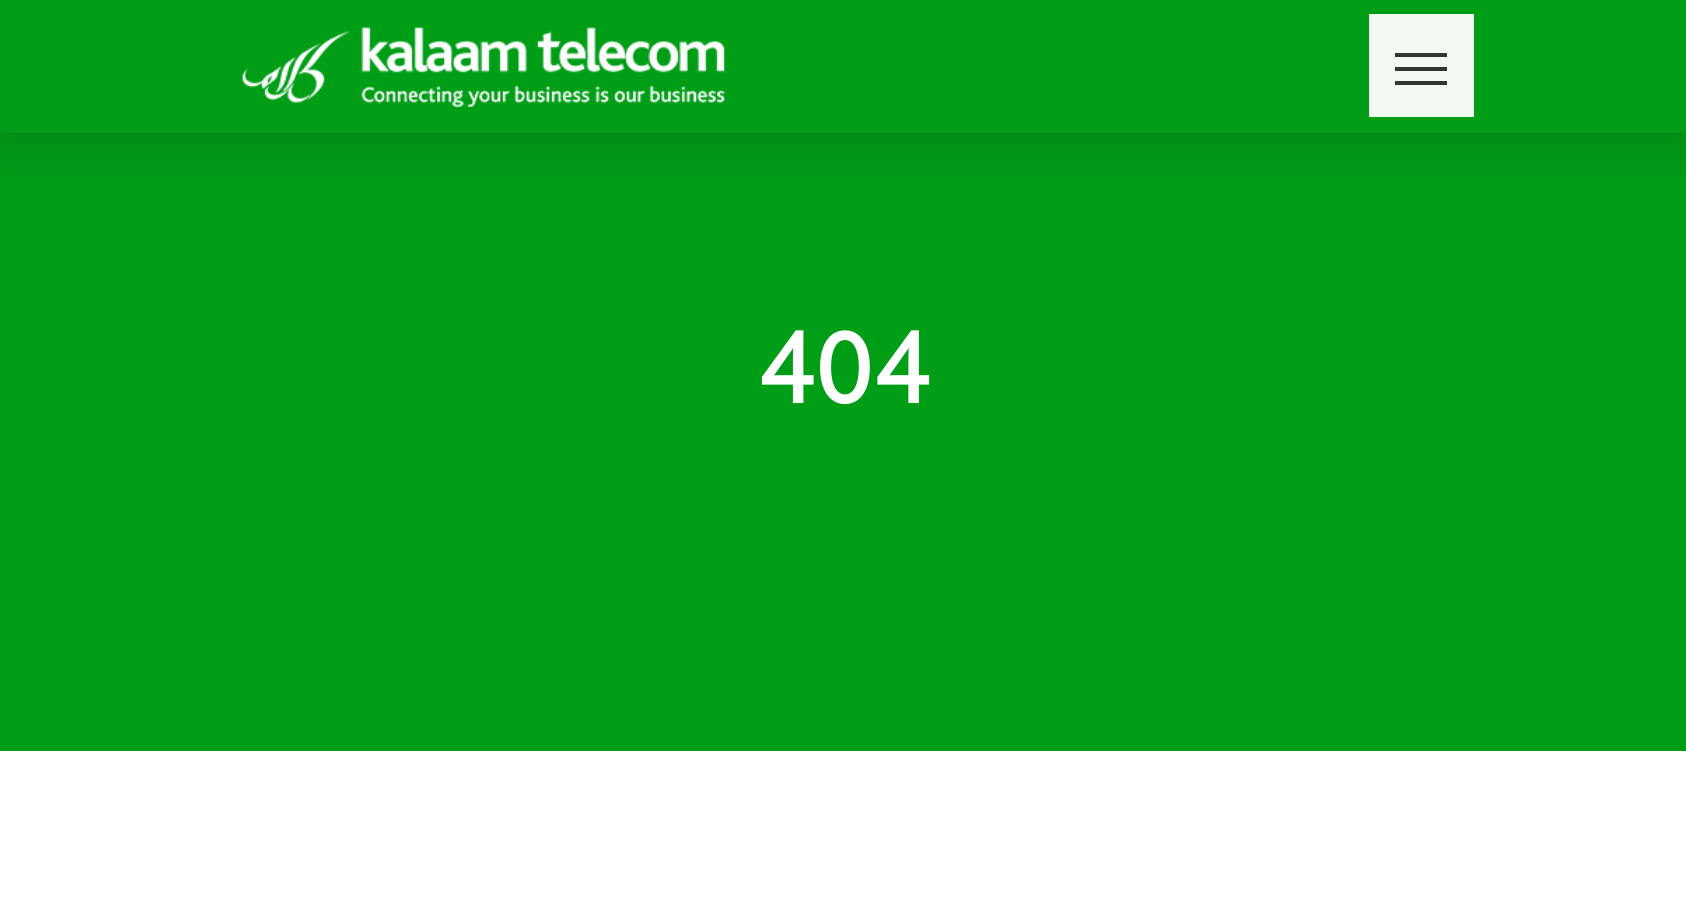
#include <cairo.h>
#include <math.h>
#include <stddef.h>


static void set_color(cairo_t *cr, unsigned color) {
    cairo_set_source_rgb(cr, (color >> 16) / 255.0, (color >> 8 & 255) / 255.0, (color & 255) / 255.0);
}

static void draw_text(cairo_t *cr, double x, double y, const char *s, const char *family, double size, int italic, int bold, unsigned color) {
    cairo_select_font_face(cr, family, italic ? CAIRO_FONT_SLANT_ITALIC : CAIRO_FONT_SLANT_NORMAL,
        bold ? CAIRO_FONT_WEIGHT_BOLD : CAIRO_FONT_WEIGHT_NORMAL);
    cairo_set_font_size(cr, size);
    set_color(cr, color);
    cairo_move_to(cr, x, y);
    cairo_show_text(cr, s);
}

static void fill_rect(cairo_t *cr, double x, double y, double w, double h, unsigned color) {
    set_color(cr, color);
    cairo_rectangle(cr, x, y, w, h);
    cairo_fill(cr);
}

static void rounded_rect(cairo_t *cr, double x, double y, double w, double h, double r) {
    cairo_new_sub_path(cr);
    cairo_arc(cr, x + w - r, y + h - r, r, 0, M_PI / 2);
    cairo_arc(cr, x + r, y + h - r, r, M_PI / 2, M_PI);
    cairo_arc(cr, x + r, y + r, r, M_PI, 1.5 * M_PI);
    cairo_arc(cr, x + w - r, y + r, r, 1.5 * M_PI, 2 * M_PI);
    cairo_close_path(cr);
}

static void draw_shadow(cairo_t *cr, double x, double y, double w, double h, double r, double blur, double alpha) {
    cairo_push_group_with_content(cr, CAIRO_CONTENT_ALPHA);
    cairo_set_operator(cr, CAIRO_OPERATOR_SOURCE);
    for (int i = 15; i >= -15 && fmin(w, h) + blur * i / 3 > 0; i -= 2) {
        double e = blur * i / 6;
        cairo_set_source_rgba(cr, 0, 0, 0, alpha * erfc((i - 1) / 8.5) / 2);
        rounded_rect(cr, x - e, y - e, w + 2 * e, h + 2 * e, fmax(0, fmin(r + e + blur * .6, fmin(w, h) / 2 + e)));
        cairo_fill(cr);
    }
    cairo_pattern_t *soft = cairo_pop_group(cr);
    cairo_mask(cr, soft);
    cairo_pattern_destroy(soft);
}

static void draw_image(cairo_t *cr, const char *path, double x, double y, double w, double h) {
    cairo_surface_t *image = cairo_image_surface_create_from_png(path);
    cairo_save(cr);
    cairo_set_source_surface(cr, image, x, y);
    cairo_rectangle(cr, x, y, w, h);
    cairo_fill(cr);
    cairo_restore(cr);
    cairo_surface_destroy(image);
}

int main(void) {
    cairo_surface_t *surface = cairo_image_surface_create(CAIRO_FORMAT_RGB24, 1686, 898);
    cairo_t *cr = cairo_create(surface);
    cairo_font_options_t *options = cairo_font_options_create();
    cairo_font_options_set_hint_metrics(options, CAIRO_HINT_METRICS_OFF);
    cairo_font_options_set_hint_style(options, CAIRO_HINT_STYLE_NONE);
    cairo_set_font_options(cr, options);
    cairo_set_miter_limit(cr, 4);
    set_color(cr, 0xFFFFFF);
    cairo_paint(cr);
    fill_rect(cr, 0, 0, 1686, 751, 0x009D17);
    cairo_save(cr);
    cairo_rectangle(cr, 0, 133, 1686, 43);
    cairo_clip(cr);
    set_color(cr, 0x000000);
    draw_shadow(cr, 0, 14, 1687, 133, 0, 26, 0.15);
    cairo_restore(cr);
    draw_image(cr, "assets/img1.png", 242, 27, 483, 80);
    fill_rect(cr, 1369, 14, 105, 103, 0xF2FAF3);
    fill_rect(cr, 1395, 53, 52, 4, 0x303731);
    fill_rect(cr, 1395, 81, 52, 4, 0x303731);
    fill_rect(cr, 1395, 67, 52, 4, 0x303731);
    fill_rect(cr, 0, 131, 1686, 2, 0x08951C);
    draw_text(cr, 757, 403, "404", "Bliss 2", 105, 0, 1, 0xFFFFFF);
    cairo_surface_write_to_png(surface, "output.png");
    cairo_font_options_destroy(options);
    cairo_destroy(cr);
    cairo_surface_destroy(surface);
    return 0;
}
